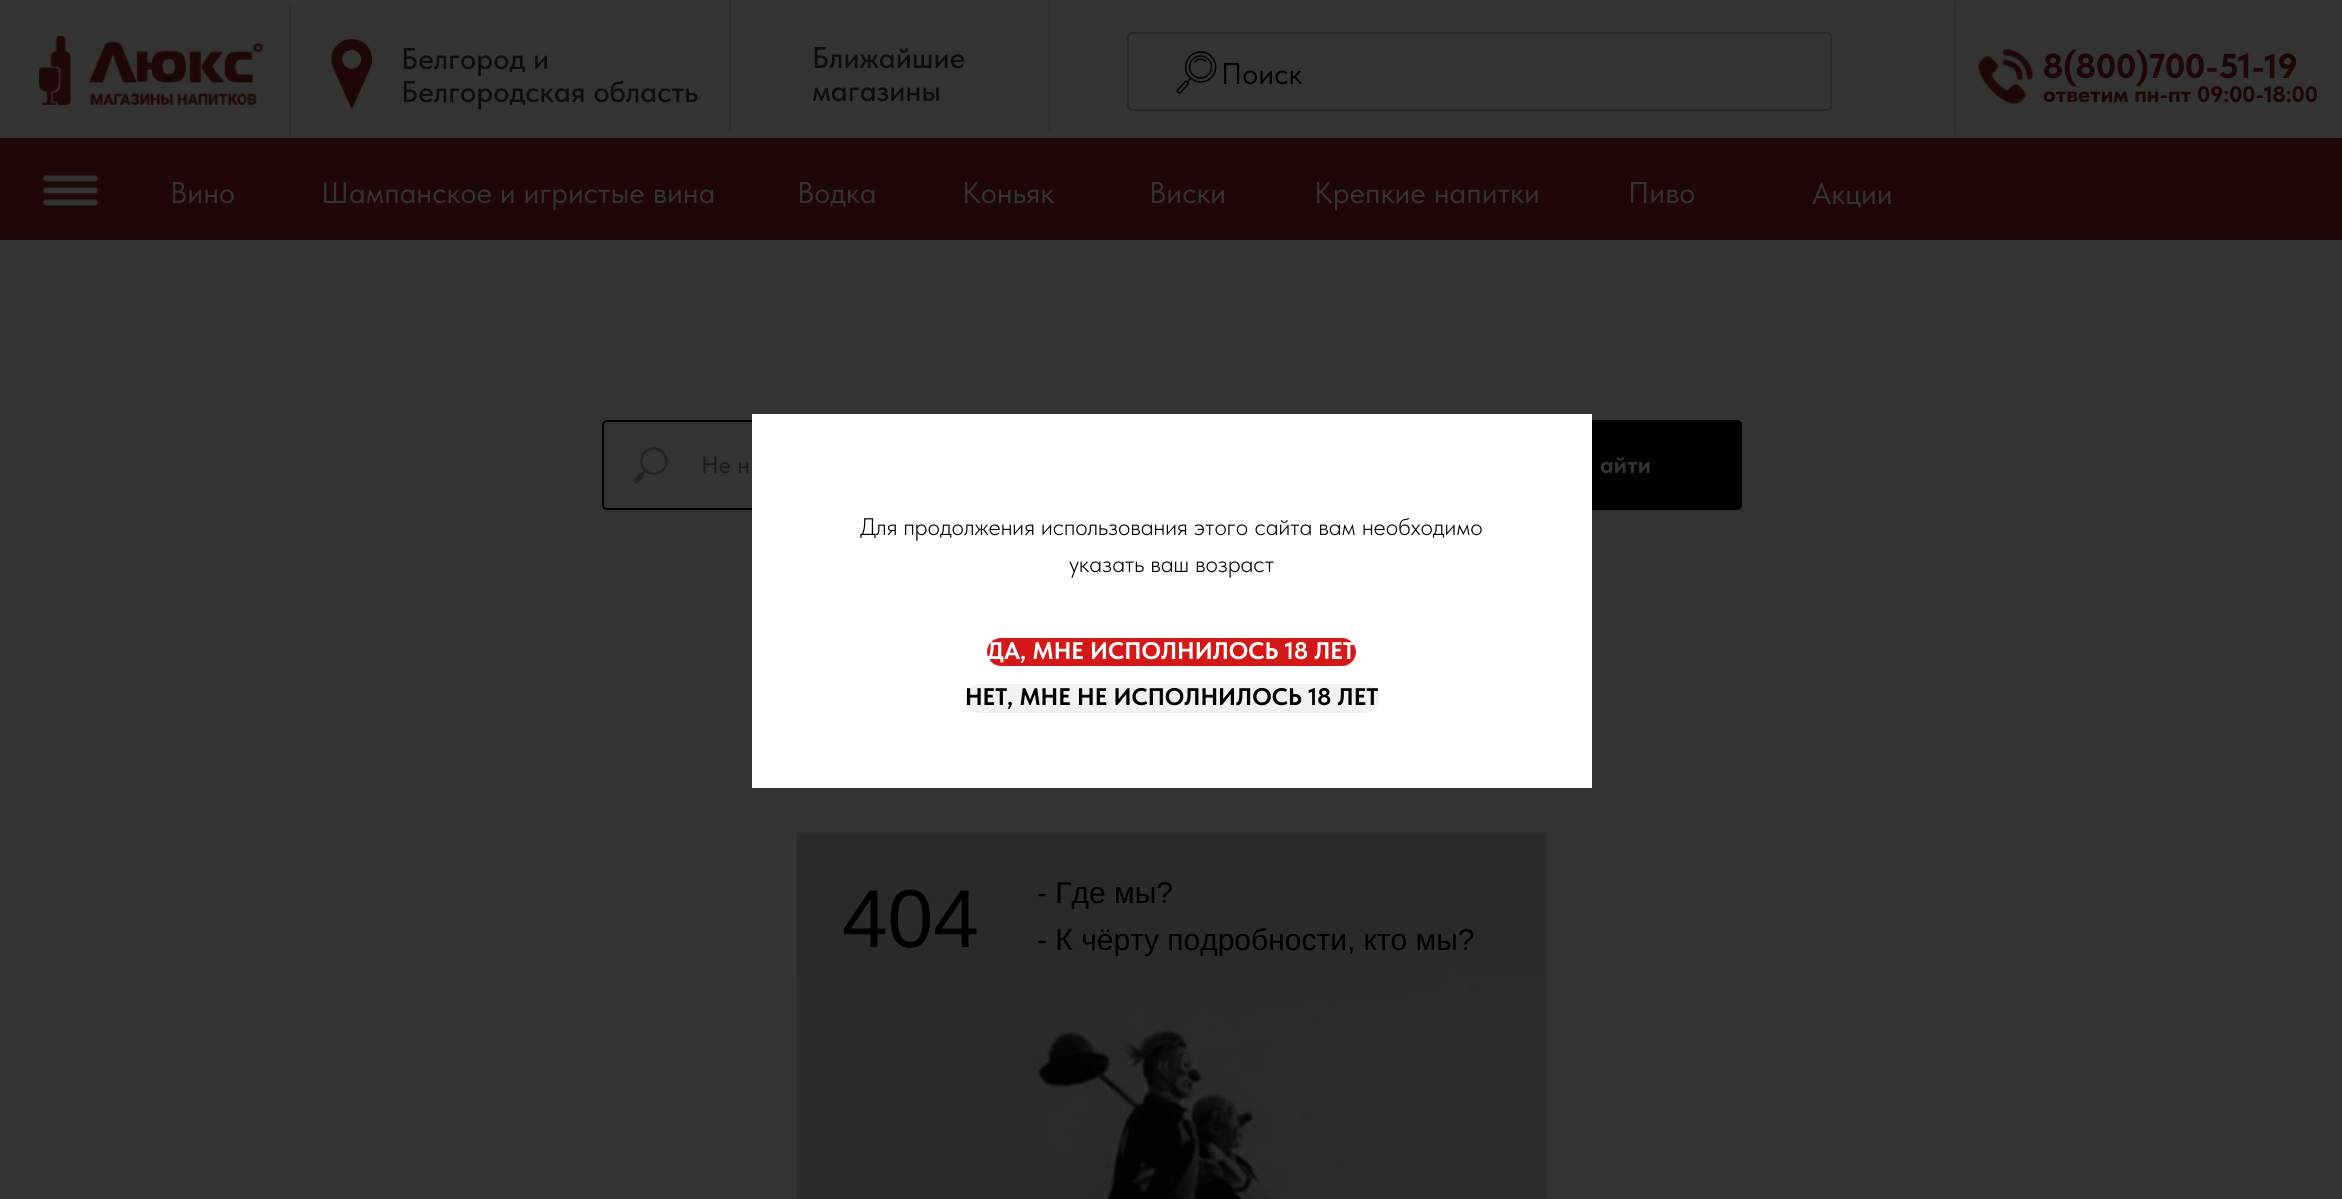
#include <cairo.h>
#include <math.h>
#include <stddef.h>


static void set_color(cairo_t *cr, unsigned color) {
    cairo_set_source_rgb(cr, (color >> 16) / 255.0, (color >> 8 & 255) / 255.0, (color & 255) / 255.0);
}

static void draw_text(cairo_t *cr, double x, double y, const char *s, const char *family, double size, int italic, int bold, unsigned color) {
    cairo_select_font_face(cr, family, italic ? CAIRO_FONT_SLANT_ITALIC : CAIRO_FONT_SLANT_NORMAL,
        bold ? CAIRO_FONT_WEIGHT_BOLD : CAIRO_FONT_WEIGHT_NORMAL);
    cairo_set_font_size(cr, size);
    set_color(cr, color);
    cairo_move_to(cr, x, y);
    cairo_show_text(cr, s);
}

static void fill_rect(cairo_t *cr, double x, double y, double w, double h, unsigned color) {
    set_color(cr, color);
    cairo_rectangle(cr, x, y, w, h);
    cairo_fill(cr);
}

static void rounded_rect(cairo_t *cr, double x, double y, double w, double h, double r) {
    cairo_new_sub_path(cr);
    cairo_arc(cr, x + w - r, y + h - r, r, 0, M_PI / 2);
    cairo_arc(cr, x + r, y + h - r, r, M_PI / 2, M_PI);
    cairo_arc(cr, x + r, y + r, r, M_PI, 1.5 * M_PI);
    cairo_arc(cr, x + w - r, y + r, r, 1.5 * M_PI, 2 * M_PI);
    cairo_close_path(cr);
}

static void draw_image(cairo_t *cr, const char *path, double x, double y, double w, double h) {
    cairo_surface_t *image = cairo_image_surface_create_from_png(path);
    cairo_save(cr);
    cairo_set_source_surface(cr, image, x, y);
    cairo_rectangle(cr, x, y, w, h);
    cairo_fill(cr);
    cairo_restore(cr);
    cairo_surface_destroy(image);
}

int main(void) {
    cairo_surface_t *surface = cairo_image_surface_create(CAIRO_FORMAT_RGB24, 2342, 1199);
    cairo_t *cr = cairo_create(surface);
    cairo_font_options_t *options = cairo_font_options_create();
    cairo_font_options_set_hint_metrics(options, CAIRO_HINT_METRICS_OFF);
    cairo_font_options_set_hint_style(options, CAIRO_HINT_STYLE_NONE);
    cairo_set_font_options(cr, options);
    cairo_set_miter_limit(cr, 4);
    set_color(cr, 0x333333);
    cairo_paint(cr);
    draw_image(cr, "assets/img1.png", 39, 36, 224, 69);
    draw_image(cr, "assets/img2.png", 289, 4, 2, 133);
    draw_image(cr, "assets/img3.png", 331, 39, 41, 71);
    draw_text(cr, 401, 69, "Белгород и", "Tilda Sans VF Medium", 30, 0, 0, 0x0D0D0D);
    draw_text(cr, 401, 102, "Белгородская область", "Tilda Sans VF Medium", 30, 0, 0, 0x0D0D0D);
    draw_image(cr, "assets/img4.png", 729, 0, 2, 132);
    draw_text(cr, 812, 68, "Ближайшие", "Tilda Sans VF Medium", 30, 0, 0, 0x0D0D0D);
    draw_text(cr, 812, 101, "магазины", "Tilda Sans VF Medium", 30, 0, 0, 0x0D0D0D);
    draw_image(cr, "assets/img5.png", 1048, 0, 2, 132);
    draw_image(cr, "assets/img7.png", 1176, 51, 41, 44);
    rounded_rect(cr, 1128, 33, 703, 77, 4);
    set_color(cr, 0x282828);
    cairo_stroke(cr);
    draw_image(cr, "assets/img2.png", 1954, 1, 2, 133);
    draw_image(cr, "assets/img6.png", 1978, 49, 55, 55);
    draw_text(cr, 2043, 78, "8(800)700-51-19", "Tilda Sans VF ExtraBold", 34.5, 0, 0, 0x1F0707);
    draw_text(cr, 1221, 84, "Поиск", "Tilda Sans VF", 30, 0, 0, 0x000000);
    draw_text(cr, 2043, 102, "ответим пн-пт 09:00-18:00", "Tilda Sans VF ExtraBold", 22.5, 0, 0, 0x1F0707);
    fill_rect(cr, 0, 138, 2342, 102, 0x1F0707);
    draw_image(cr, "assets/img8.png", 43, 175, 55, 31);
    draw_text(cr, 170, 203, "Вино", "Tilda Sans VF", 30, 0, 0, 0x333333);
    draw_text(cr, 321, 203, "Шампанское и игристые вина", "Tilda Sans VF", 30, 0, 0, 0x333333);
    draw_text(cr, 797, 203, "Водка", "Tilda Sans VF", 30, 0, 0, 0x333333);
    draw_text(cr, 962, 203, "Коньяк", "Tilda Sans VF", 30, 0, 0, 0x333333);
    draw_text(cr, 1149, 203, "Виски", "Tilda Sans VF", 30, 0, 0, 0x333333);
    draw_text(cr, 1314, 203, "Крепкие напитки", "Tilda Sans VF", 30, 0, 0, 0x333333);
    draw_text(cr, 1628, 203, "Пиво", "Tilda Sans VF", 30, 0, 0, 0x333333);
    draw_text(cr, 1812, 204, "Акции", "Tilda Sans VF", 30, 0, 0, 0x333333);
    rounded_rect(cr, 603, 421, 859, 88, 4);
    set_color(cr, 0x000000);
    cairo_stroke(cr);
    rounded_rect(cr, 1493, 420, 249, 90, 5);
    cairo_fill(cr);
    fill_rect(cr, 752, 414, 840, 374, 0xFFFFFF);
    draw_text(cr, 860, 535, "Для продолжения использования этого сайта вам необходимо", "Tilda Sans VF Light", 24, 0, 0, 0x000000);
    draw_text(cr, 1069, 572, "указать ваш возраст", "Tilda Sans VF Light", 24, 0, 0, 0x000000);
    set_color(cr, 0xD41818);
    rounded_rect(cr, 987, 638, 369, 28, 14);
    cairo_fill(cr);
    draw_text(cr, 987, 659, "ДА, МНЕ ИСПОЛНИЛОСЬ 18 ЛЕТ", "Tilda Sans VF", 24, 0, 1, 0xFFFFFF);
    set_color(cr, 0xF2F2F2);
    rounded_rect(cr, 965, 684, 414, 29, 14.5);
    cairo_fill(cr);
    draw_text(cr, 965, 705, "НЕТ, МНЕ НЕ ИСПОЛНИЛОСЬ 18 ЛЕТ", "Tilda Sans VF", 24, 0, 1, 0x000000);
    draw_image(cr, "assets/img9.png", 633, 447, 35, 38);
    draw_text(cr, 701, 473, "Не н", "Tilda Sans VF", 24, 0, 0, 0x1A1A1A);
    draw_text(cr, 1600, 473, "айти", "Tilda Sans VF", 24, 0, 1, 0x333333);
    draw_image(cr, "assets/img10.png", 796, 832, 751, 367);
    draw_text(cr, 842, 947, "404", "Liberation Sans", 82, 0, 0, 0x000000);
    draw_text(cr, 1037, 903, "- Где мы?", "Liberation Sans", 30, 0, 0, 0x000000);
    draw_text(cr, 1037, 950, "- К чёрту подробности, кто мы?", "Liberation Sans", 30, 0, 0, 0x000000);
    cairo_surface_write_to_png(surface, "output.png");
    cairo_font_options_destroy(options);
    cairo_destroy(cr);
    cairo_surface_destroy(surface);
    return 0;
}
